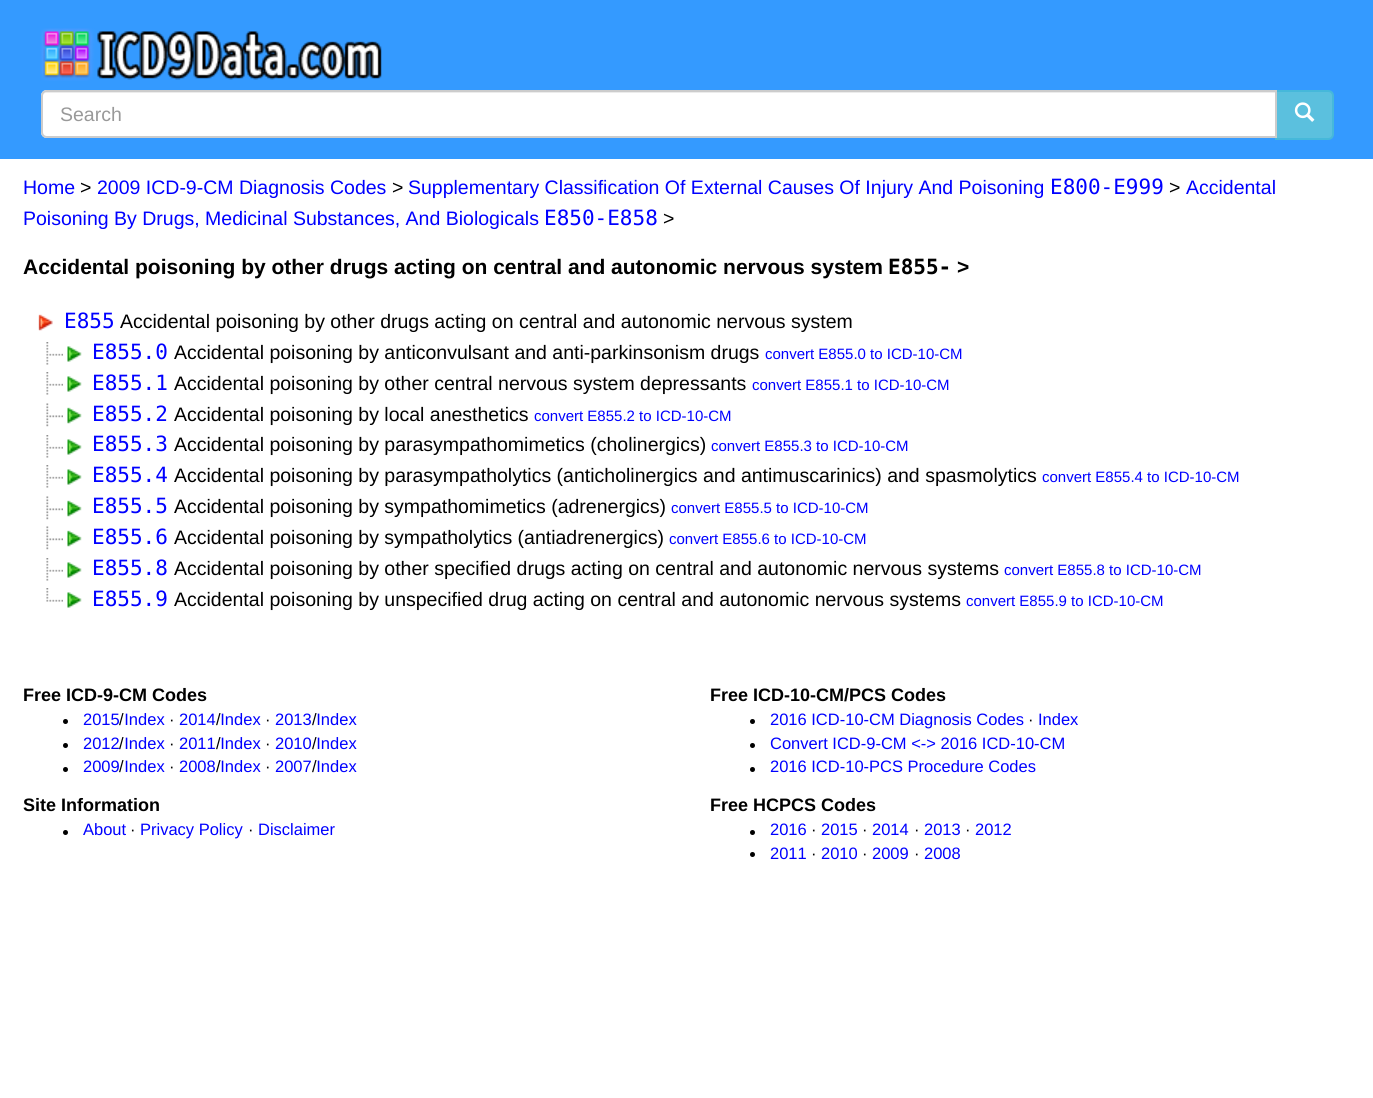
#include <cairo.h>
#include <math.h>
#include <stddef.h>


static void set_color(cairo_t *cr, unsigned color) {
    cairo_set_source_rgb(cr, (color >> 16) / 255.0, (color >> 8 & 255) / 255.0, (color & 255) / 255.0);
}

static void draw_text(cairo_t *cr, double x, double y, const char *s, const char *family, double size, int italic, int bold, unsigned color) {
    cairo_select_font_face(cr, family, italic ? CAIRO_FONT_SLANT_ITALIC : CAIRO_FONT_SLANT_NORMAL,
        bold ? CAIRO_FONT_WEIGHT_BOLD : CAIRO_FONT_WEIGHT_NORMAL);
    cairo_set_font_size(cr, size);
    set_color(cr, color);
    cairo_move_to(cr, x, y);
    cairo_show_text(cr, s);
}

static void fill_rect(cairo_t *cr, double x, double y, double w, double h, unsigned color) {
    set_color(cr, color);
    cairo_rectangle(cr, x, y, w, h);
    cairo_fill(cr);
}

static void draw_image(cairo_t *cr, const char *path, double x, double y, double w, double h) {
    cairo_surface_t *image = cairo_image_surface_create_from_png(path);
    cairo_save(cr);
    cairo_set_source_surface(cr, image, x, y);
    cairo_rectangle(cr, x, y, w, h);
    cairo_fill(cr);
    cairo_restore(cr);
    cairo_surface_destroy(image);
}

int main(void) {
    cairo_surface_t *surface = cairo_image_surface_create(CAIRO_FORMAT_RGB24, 1373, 1098);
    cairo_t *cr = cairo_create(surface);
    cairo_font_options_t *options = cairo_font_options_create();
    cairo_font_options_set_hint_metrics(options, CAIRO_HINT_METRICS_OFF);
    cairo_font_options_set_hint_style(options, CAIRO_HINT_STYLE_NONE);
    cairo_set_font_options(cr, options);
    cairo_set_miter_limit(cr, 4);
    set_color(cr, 0xFFFFFF);
    cairo_paint(cr);
    fill_rect(cr, 0, 0, 1373, 159, 0x349AFF);
    draw_image(cr, "assets/img1.png", 40, 28, 342, 53);
    set_color(cr, 0x5BC0DE);
    cairo_new_path(cr);
    cairo_move_to(cr, 1276, 91);
    cairo_line_to(cr, 1328, 91);
    cairo_curve_to(cr, 1331, 91, 1333, 93, 1333, 96);
    cairo_line_to(cr, 1333, 134);
    cairo_curve_to(cr, 1333, 137, 1331, 139, 1328, 139);
    cairo_line_to(cr, 1276, 139);
    cairo_close_path(cr);
    cairo_fill_preserve(cr);
    set_color(cr, 0x46B8DA);
    cairo_stroke(cr);
    set_color(cr, 0xFFFFFF);
    cairo_new_path(cr);
    cairo_move_to(cr, 47, 90);
    cairo_line_to(cr, 1277, 90);
    cairo_line_to(cr, 1277, 138);
    cairo_line_to(cr, 47, 138);
    cairo_curve_to(cr, 43.5, 138, 41, 135.5, 41, 132);
    cairo_line_to(cr, 41, 96);
    cairo_curve_to(cr, 41, 92.5, 43.5, 90, 47, 90);
    cairo_close_path(cr);
    cairo_fill(cr);
    set_color(cr, 0xECECEC);
    cairo_new_path(cr);
    cairo_move_to(cr, 46, 93);
    cairo_line_to(cr, 1275, 93);
    cairo_line_to(cr, 1275, 92);
    cairo_line_to(cr, 47, 92);
    cairo_curve_to(cr, 44, 92, 42, 95, 42, 98);
    cairo_curve_to(cr, 42, 95, 44, 93, 46, 93);
    cairo_close_path(cr);
    cairo_fill(cr);
    cairo_new_path(cr);
    cairo_move_to(cr, 47, 91);
    cairo_line_to(cr, 1276, 91);
    cairo_line_to(cr, 1276, 137);
    cairo_line_to(cr, 47, 137);
    cairo_curve_to(cr, 44, 137, 42, 135, 42, 132);
    cairo_line_to(cr, 42, 96);
    cairo_curve_to(cr, 42, 93, 44, 91, 47, 91);
    cairo_close_path(cr);
    set_color(cr, 0xCCCCCC);
    cairo_stroke(cr);
    draw_text(cr, 60, 121, "Search", "Liberation Sans", 19.5, 0, 0, 0x999999);
    draw_image(cr, "assets/img2.png", 1294, 102, 21, 20);
    draw_text(cr, 23, 194, "Home", "Liberation Sans", 19.5, 0, 0, 0x0000FF);
    draw_text(cr, 80, 194, ">", "Liberation Sans", 19.5, 0, 0, 0x000000);
    draw_text(cr, 97, 194, "2009 ICD-9-CM Diagnosis Codes", "Liberation Sans", 19.5, 0, 0, 0x0000FF);
    draw_text(cr, 392, 194, ">", "Liberation Sans", 19.5, 0, 0, 0x000000);
    draw_text(cr, 408, 194, "Supplementary Classification Of External Causes Of Injury And Poisoning", "Liberation Sans", 19.5, 0, 0, 0x0000FF);
    draw_text(cr, 1050, 194, "E800-E999", "DejaVu Sans Mono", 21, 0, 0, 0x0000FF);
    draw_text(cr, 1169, 194, ">", "Liberation Sans", 19.5, 0, 0, 0x000000);
    draw_text(cr, 1186, 194, "Accidental", "Liberation Sans", 19.5, 0, 0, 0x0000FF);
    draw_text(cr, 23, 225, "Poisoning By Drugs, Medicinal Substances, And Biologicals", "Liberation Sans", 19.5, 0, 0, 0x0000FF);
    draw_text(cr, 544, 225, "E850-E858", "DejaVu Sans Mono", 21, 0, 0, 0x0000FF);
    draw_text(cr, 663, 225, ">", "Liberation Sans", 19.5, 0, 0, 0x000000);
    draw_text(cr, 23, 274, "Accidental poisoning by other drugs acting on central and autonomic nervous system", "Liberation Sans", 21, 0, 1, 0x000000);
    draw_text(cr, 888, 274, "E855-", "DejaVu Sans Mono", 21, 0, 1, 0x000000);
    draw_text(cr, 957, 274, ">", "Liberation Sans", 21, 0, 1, 0x000000);
    draw_image(cr, "assets/img3.png", 38, 314, 15, 17);
    draw_text(cr, 64, 328, "E855", "DejaVu Sans Mono", 21, 0, 0, 0x0000FF);
    draw_text(cr, 120, 328, "Accidental poisoning by other drugs acting on central and autonomic nervous system", "Liberation Sans", 19.5, 0, 0, 0x000000);
    draw_image(cr, "assets/img4.png", 46, 342, 17, 23);
    draw_image(cr, "assets/img5.png", 67, 346, 15, 16);
    draw_text(cr, 92, 359, "E855.0", "DejaVu Sans Mono", 21, 0, 0, 0x0000FF);
    draw_text(cr, 174, 359, "Accidental poisoning by anticonvulsant and anti-parkinsonism drugs", "Liberation Sans", 19.5, 0, 0, 0x000000);
    draw_text(cr, 765, 359, "convert E855.0 to ICD-10-CM", "Liberation Sans", 15, 0, 0, 0x0000FF);
    draw_image(cr, "assets/img4.png", 46, 372, 17, 23);
    draw_image(cr, "assets/img5.png", 67, 376, 15, 16);
    draw_text(cr, 92, 390, "E855.1", "DejaVu Sans Mono", 21, 0, 0, 0x0000FF);
    draw_text(cr, 174, 390, "Accidental poisoning by other central nervous system depressants", "Liberation Sans", 19.5, 0, 0, 0x000000);
    draw_text(cr, 752, 390, "convert E855.1 to ICD-10-CM", "Liberation Sans", 15, 0, 0, 0x0000FF);
    draw_image(cr, "assets/img6.png", 46, 403, 17, 24);
    draw_image(cr, "assets/img7.png", 67, 407, 15, 17);
    draw_text(cr, 92, 421, "E855.2", "DejaVu Sans Mono", 21, 0, 0, 0x0000FF);
    draw_text(cr, 174, 421, "Accidental poisoning by local anesthetics", "Liberation Sans", 19.5, 0, 0, 0x000000);
    draw_text(cr, 534, 421, "convert E855.2 to ICD-10-CM", "Liberation Sans", 15, 0, 0, 0x0000FF);
    draw_image(cr, "assets/img4.png", 46, 435, 17, 23);
    draw_image(cr, "assets/img5.png", 67, 439, 15, 16);
    draw_text(cr, 92, 451, "E855.3", "DejaVu Sans Mono", 21, 0, 0, 0x0000FF);
    draw_text(cr, 174, 451, "Accidental poisoning by parasympathomimetics (cholinergics)", "Liberation Sans", 19.5, 0, 0, 0x000000);
    draw_text(cr, 711, 451, "convert E855.3 to ICD-10-CM", "Liberation Sans", 15, 0, 0, 0x0000FF);
    draw_image(cr, "assets/img4.png", 46, 465, 17, 23);
    draw_image(cr, "assets/img5.png", 67, 469, 15, 16);
    draw_text(cr, 92, 482, "E855.4", "DejaVu Sans Mono", 21, 0, 0, 0x0000FF);
    draw_text(cr, 174, 482, "Accidental poisoning by parasympatholytics (anticholinergics and antimuscarinics) and spasmolytics", "Liberation Sans", 19.5, 0, 0, 0x000000);
    draw_text(cr, 1042, 482, "convert E855.4 to ICD-10-CM", "Liberation Sans", 15, 0, 0, 0x0000FF);
    draw_image(cr, "assets/img6.png", 46, 496, 17, 24);
    draw_image(cr, "assets/img7.png", 67, 500, 15, 17);
    draw_text(cr, 92, 513, "E855.5", "DejaVu Sans Mono", 21, 0, 0, 0x0000FF);
    draw_text(cr, 174, 513, "Accidental poisoning by sympathomimetics (adrenergics)", "Liberation Sans", 19.5, 0, 0, 0x000000);
    draw_text(cr, 671, 513, "convert E855.5 to ICD-10-CM", "Liberation Sans", 15, 0, 0, 0x0000FF);
    draw_image(cr, "assets/img6.png", 46, 526, 17, 24);
    draw_image(cr, "assets/img7.png", 67, 530, 15, 17);
    draw_text(cr, 92, 544, "E855.6", "DejaVu Sans Mono", 21, 0, 0, 0x0000FF);
    draw_text(cr, 174, 544, "Accidental poisoning by sympatholytics (antiadrenergics)", "Liberation Sans", 19.5, 0, 0, 0x000000);
    draw_text(cr, 669, 544, "convert E855.6 to ICD-10-CM", "Liberation Sans", 15, 0, 0, 0x0000FF);
    draw_image(cr, "assets/img4.png", 46, 558, 17, 23);
    draw_image(cr, "assets/img5.png", 67, 562, 15, 16);
    draw_text(cr, 92, 575, "E855.8", "DejaVu Sans Mono", 21, 0, 0, 0x0000FF);
    draw_text(cr, 174, 575, "Accidental poisoning by other specified drugs acting on central and autonomic nervous systems", "Liberation Sans", 19.5, 0, 0, 0x000000);
    draw_text(cr, 1004, 575, "convert E855.8 to ICD-10-CM", "Liberation Sans", 15, 0, 0, 0x0000FF);
    draw_image(cr, "assets/img8.png", 46, 588, 17, 14);
    draw_image(cr, "assets/img5.png", 67, 592, 15, 16);
    draw_text(cr, 92, 606, "E855.9", "DejaVu Sans Mono", 21, 0, 0, 0x0000FF);
    draw_text(cr, 174, 606, "Accidental poisoning by unspecified drug acting on central and autonomic nervous systems", "Liberation Sans", 19.5, 0, 0, 0x000000);
    draw_text(cr, 966, 606, "convert E855.9 to ICD-10-CM", "Liberation Sans", 15, 0, 0, 0x0000FF);
    draw_text(cr, 23, 701, "Free ICD-9-CM Codes", "Liberation Sans", 18, 0, 1, 0x000000);
    draw_text(cr, 83, 725, "2015 Index", "Liberation Sans", 16.5, 0, 0, 0x0000FF);
    draw_text(cr, 119, 725, "/", "Liberation Sans", 16.5, 0, 0, 0x000000);
    draw_text(cr, 179, 725, "2014 Index", "Liberation Sans", 16.5, 0, 0, 0x0000FF);
    draw_text(cr, 216, 725, "/", "Liberation Sans", 16.5, 0, 0, 0x000000);
    draw_text(cr, 275, 725, "2013 Index", "Liberation Sans", 16.5, 0, 0, 0x0000FF);
    set_color(cr, 0x000000);
    cairo_new_path(cr);
    cairo_arc(cr, 65.5, 721.5, 2.5, 0, 2 * M_PI);
    cairo_fill(cr);
    draw_text(cr, 169, 725, "·", "Liberation Sans", 16.5, 0, 0, 0x000000);
    draw_text(cr, 265, 725, "·", "Liberation Sans", 16.5, 0, 0, 0x000000);
    draw_text(cr, 312, 725, "/", "Liberation Sans", 16.5, 0, 0, 0x000000);
    draw_text(cr, 83, 749, "2012 Index", "Liberation Sans", 16.5, 0, 0, 0x0000FF);
    draw_text(cr, 119, 749, "/", "Liberation Sans", 16.5, 0, 0, 0x000000);
    draw_text(cr, 179, 749, "2011 Index", "Liberation Sans", 16.5, 0, 0, 0x0000FF);
    draw_text(cr, 216, 749, "/", "Liberation Sans", 16.5, 0, 0, 0x000000);
    draw_text(cr, 275, 749, "2010 Index", "Liberation Sans", 16.5, 0, 0, 0x0000FF);
    set_color(cr, 0x000000);
    cairo_new_path(cr);
    cairo_arc(cr, 65.5, 745.5, 2.5, 0, 2 * M_PI);
    cairo_fill(cr);
    draw_text(cr, 169, 749, "·", "Liberation Sans", 16.5, 0, 0, 0x000000);
    draw_text(cr, 265, 749, "·", "Liberation Sans", 16.5, 0, 0, 0x000000);
    draw_text(cr, 312, 749, "/", "Liberation Sans", 16.5, 0, 0, 0x000000);
    draw_text(cr, 83, 772, "2009 Index", "Liberation Sans", 16.5, 0, 0, 0x0000FF);
    draw_text(cr, 119, 772, "/", "Liberation Sans", 16.5, 0, 0, 0x000000);
    draw_text(cr, 179, 772, "2008 Index", "Liberation Sans", 16.5, 0, 0, 0x0000FF);
    draw_text(cr, 216, 772, "/", "Liberation Sans", 16.5, 0, 0, 0x000000);
    draw_text(cr, 275, 772, "2007 Index", "Liberation Sans", 16.5, 0, 0, 0x0000FF);
    set_color(cr, 0x000000);
    cairo_new_path(cr);
    cairo_arc(cr, 65.5, 769.5, 2.5, 0, 2 * M_PI);
    cairo_fill(cr);
    draw_text(cr, 169, 772, "·", "Liberation Sans", 16.5, 0, 0, 0x000000);
    draw_text(cr, 265, 772, "·", "Liberation Sans", 16.5, 0, 0, 0x000000);
    draw_text(cr, 312, 772, "/", "Liberation Sans", 16.5, 0, 0, 0x000000);
    draw_text(cr, 23, 811, "Site Information", "Liberation Sans", 18, 0, 1, 0x000000);
    cairo_new_path(cr);
    cairo_arc(cr, 65.5, 832.5, 2.5, 0, 2 * M_PI);
    cairo_fill(cr);
    draw_text(cr, 83, 835, "About", "Liberation Sans", 16.5, 0, 0, 0x0000FF);
    draw_text(cr, 130, 835, "·", "Liberation Sans", 16.5, 0, 0, 0x000000);
    draw_text(cr, 140, 835, "Privacy Policy", "Liberation Sans", 16.5, 0, 0, 0x0000FF);
    draw_text(cr, 248, 835, "·", "Liberation Sans", 16.5, 0, 0, 0x000000);
    draw_text(cr, 258, 835, "Disclaimer", "Liberation Sans", 16.5, 0, 0, 0x0000FF);
    draw_text(cr, 710, 701, "Free ICD-10-CM/PCS Codes", "Liberation Sans", 18, 0, 1, 0x000000);
    cairo_new_path(cr);
    cairo_arc(cr, 752.5, 721.5, 2.5, 0, 2 * M_PI);
    cairo_fill(cr);
    draw_text(cr, 770, 725, "2016 ICD-10-CM Diagnosis Codes", "Liberation Sans", 16.5, 0, 0, 0x0000FF);
    draw_text(cr, 1028, 725, "·", "Liberation Sans", 16.5, 0, 0, 0x000000);
    draw_text(cr, 1038, 725, "Index", "Liberation Sans", 16.5, 0, 0, 0x0000FF);
    set_color(cr, 0x000000);
    cairo_new_path(cr);
    cairo_arc(cr, 752.5, 745.5, 2.5, 0, 2 * M_PI);
    cairo_fill(cr);
    draw_text(cr, 770, 749, "Convert ICD-9-CM <-> 2016 ICD-10-CM", "Liberation Sans", 16.5, 0, 0, 0x0000FF);
    set_color(cr, 0x000000);
    cairo_new_path(cr);
    cairo_arc(cr, 752.5, 769.5, 2.5, 0, 2 * M_PI);
    cairo_fill(cr);
    draw_text(cr, 770, 772, "2016 ICD-10-PCS Procedure Codes", "Liberation Sans", 16.5, 0, 0, 0x0000FF);
    draw_text(cr, 710, 811, "Free HCPCS Codes", "Liberation Sans", 18, 0, 1, 0x000000);
    cairo_new_path(cr);
    cairo_arc(cr, 752.5, 832.5, 2.5, 0, 2 * M_PI);
    cairo_fill(cr);
    draw_text(cr, 770, 835, "2016", "Liberation Sans", 16.5, 0, 0, 0x0000FF);
    draw_text(cr, 811, 835, "·", "Liberation Sans", 16.5, 0, 0, 0x000000);
    draw_text(cr, 821, 835, "2015", "Liberation Sans", 16.5, 0, 0, 0x0000FF);
    draw_text(cr, 862, 835, "·", "Liberation Sans", 16.5, 0, 0, 0x000000);
    draw_text(cr, 872, 835, "2014", "Liberation Sans", 16.5, 0, 0, 0x0000FF);
    draw_text(cr, 914, 835, "·", "Liberation Sans", 16.5, 0, 0, 0x000000);
    draw_text(cr, 924, 835, "2013", "Liberation Sans", 16.5, 0, 0, 0x0000FF);
    draw_text(cr, 965, 835, "·", "Liberation Sans", 16.5, 0, 0, 0x000000);
    draw_text(cr, 975, 835, "2012", "Liberation Sans", 16.5, 0, 0, 0x0000FF);
    set_color(cr, 0x000000);
    cairo_new_path(cr);
    cairo_arc(cr, 752.5, 854.5, 2.5, 0, 2 * M_PI);
    cairo_fill(cr);
    draw_text(cr, 770, 859, "2011", "Liberation Sans", 16.5, 0, 0, 0x0000FF);
    draw_text(cr, 811, 859, "·", "Liberation Sans", 16.5, 0, 0, 0x000000);
    draw_text(cr, 821, 859, "2010", "Liberation Sans", 16.5, 0, 0, 0x0000FF);
    draw_text(cr, 862, 859, "·", "Liberation Sans", 16.5, 0, 0, 0x000000);
    draw_text(cr, 872, 859, "2009", "Liberation Sans", 16.5, 0, 0, 0x0000FF);
    draw_text(cr, 914, 859, "·", "Liberation Sans", 16.5, 0, 0, 0x000000);
    draw_text(cr, 924, 859, "2008", "Liberation Sans", 16.5, 0, 0, 0x0000FF);
    cairo_surface_write_to_png(surface, "output.png");
    cairo_font_options_destroy(options);
    cairo_destroy(cr);
    cairo_surface_destroy(surface);
    return 0;
}
